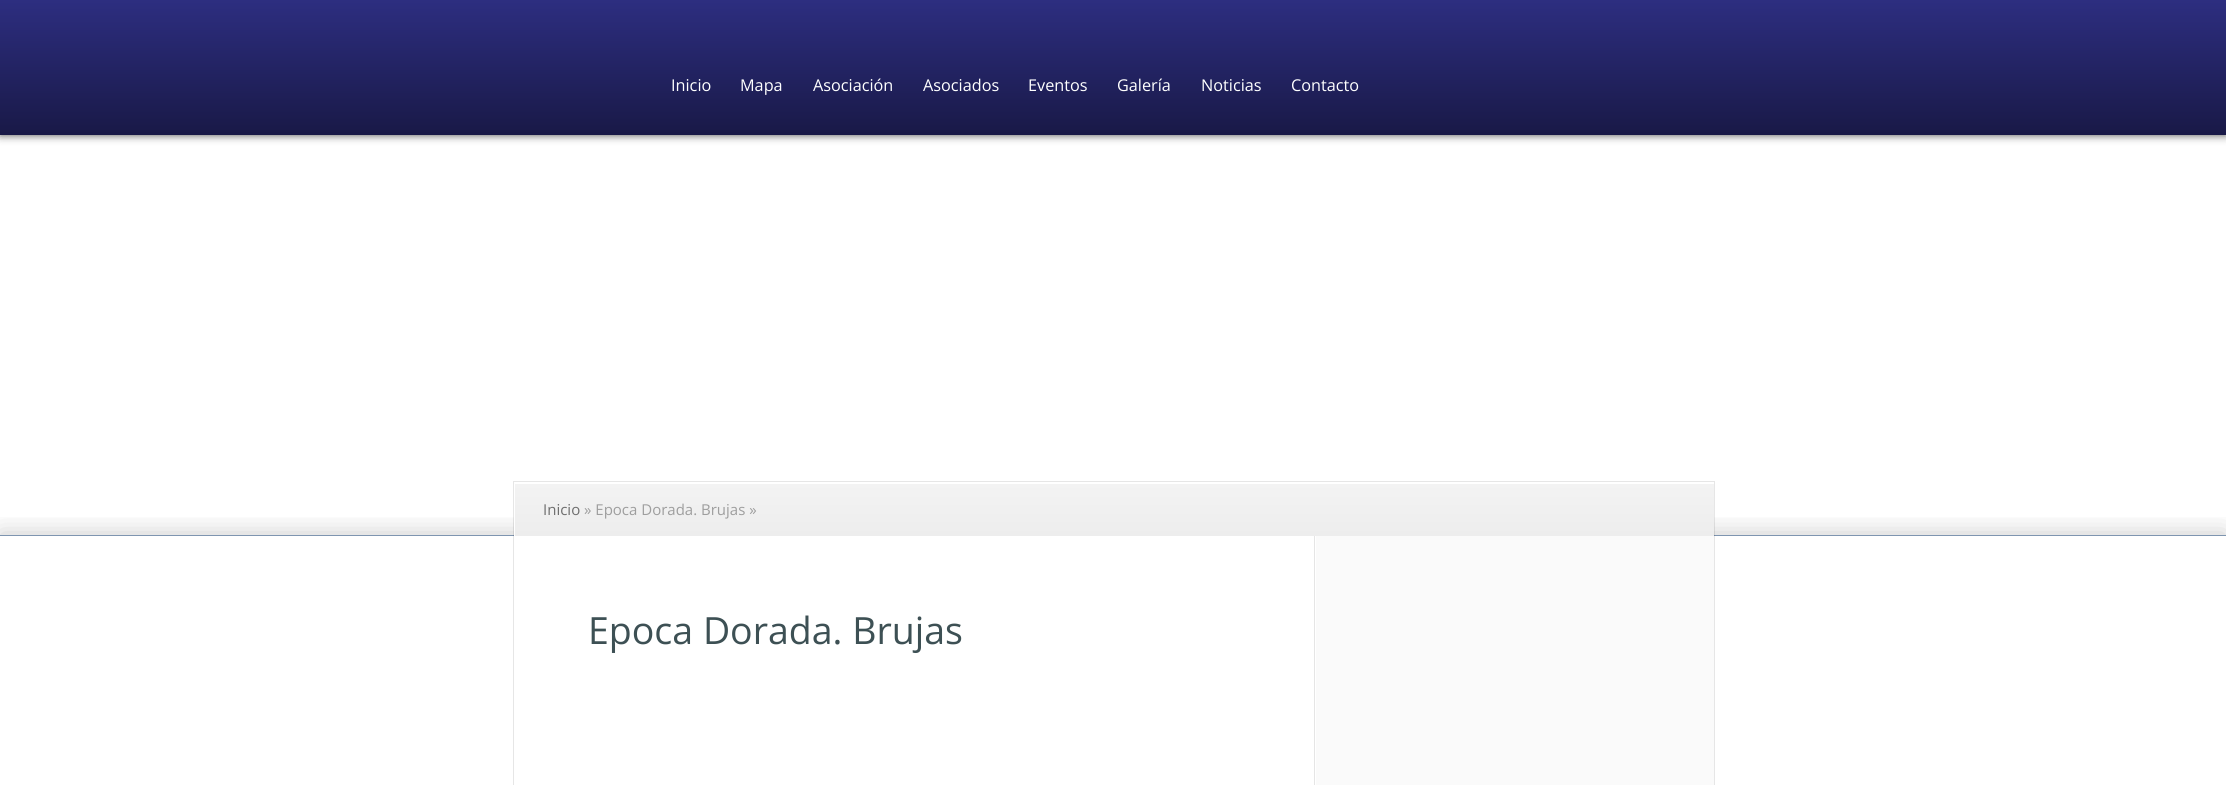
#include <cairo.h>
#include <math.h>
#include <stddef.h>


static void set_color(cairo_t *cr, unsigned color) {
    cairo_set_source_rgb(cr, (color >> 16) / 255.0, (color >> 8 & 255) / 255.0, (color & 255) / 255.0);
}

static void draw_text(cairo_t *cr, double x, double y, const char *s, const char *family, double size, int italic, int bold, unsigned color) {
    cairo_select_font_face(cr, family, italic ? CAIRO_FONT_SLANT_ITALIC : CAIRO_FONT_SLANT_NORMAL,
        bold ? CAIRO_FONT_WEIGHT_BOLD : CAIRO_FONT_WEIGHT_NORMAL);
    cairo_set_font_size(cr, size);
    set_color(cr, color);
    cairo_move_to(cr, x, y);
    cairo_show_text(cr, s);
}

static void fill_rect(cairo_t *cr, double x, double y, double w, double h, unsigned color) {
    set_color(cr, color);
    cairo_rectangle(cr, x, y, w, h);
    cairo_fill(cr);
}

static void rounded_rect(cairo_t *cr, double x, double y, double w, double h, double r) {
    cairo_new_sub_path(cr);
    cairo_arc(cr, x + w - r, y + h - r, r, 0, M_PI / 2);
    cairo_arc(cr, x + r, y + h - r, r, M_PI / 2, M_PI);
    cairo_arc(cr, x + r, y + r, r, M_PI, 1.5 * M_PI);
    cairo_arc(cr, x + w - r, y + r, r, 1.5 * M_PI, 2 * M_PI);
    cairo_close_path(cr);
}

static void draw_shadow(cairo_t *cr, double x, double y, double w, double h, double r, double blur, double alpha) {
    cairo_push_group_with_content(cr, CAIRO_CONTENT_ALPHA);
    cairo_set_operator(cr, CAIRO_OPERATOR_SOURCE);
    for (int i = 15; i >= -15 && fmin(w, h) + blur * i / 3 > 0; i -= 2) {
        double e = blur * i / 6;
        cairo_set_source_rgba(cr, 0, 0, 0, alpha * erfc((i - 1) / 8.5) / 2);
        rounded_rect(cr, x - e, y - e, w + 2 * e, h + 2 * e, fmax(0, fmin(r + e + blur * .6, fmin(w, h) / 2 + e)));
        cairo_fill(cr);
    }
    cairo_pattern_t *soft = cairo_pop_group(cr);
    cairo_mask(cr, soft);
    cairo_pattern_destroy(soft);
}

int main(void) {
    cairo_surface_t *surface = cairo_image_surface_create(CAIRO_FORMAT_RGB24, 2226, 785);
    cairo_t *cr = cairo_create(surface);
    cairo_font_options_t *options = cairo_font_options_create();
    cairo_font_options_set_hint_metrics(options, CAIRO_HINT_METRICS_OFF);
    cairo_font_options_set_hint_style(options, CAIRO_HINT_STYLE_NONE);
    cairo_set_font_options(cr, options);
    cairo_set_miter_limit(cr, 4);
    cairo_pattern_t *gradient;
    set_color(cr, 0xFFFFFF);
    cairo_paint(cr);
    set_color(cr, 0x000000);
    draw_shadow(cr, 0, 0, 2226, 135, 0, 4.5, 0.7);
    gradient = cairo_pattern_create_linear(1113, 0, 1113, 135);
    cairo_pattern_add_color_stop_rgba(gradient, 0, 0.176, 0.18, 0.502, 1);
    cairo_pattern_add_color_stop_rgba(gradient, 1, 0.098, 0.098, 0.278, 1);
    cairo_set_source(cr, gradient);
    cairo_pattern_destroy(gradient);
    cairo_rectangle(cr, 0, 0, 2226, 135);
    cairo_fill(cr);
    draw_text(cr, 671, 91, "Inicio", "Open Sans", 16.25, 0, 0, 0xFFFFFF);
    draw_text(cr, 740, 91, "Mapa", "Open Sans", 16.25, 0, 0, 0xFFFFFF);
    draw_text(cr, 813, 91, "Asociación", "Open Sans", 16.25, 0, 0, 0xFFFFFF);
    draw_text(cr, 923, 91, "Asociados", "Open Sans", 16.25, 0, 0, 0xFFFFFF);
    draw_text(cr, 1028, 91, "Eventos", "Open Sans", 16.25, 0, 0, 0xFFFFFF);
    draw_text(cr, 1117, 91, "Galería", "Open Sans", 16.25, 0, 0, 0xFFFFFF);
    draw_text(cr, 1201, 91, "Noticias", "Open Sans", 16.25, 0, 0, 0xFFFFFF);
    draw_text(cr, 1291, 91, "Contacto", "Open Sans", 16.25, 0, 0, 0xFFFFFF);
    cairo_save(cr);
    cairo_rectangle(cr, 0, 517, 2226, 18);
    cairo_clip(cr);
    set_color(cr, 0x000000);
    draw_shadow(cr, 0, 533, 2226, 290, 0, 12.5, 0.2);
    cairo_restore(cr);
    fill_rect(cr, 0, 535, 2226, 1, 0x7E95B0);
    cairo_rectangle(cr, 513.5, 481.5, 1201, 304);
    cairo_set_source_rgba(cr, 0, 0, 0, 0.1);
    cairo_set_line_width(cr, 1);
    cairo_stroke(cr);
    gradient = cairo_pattern_create_linear(1114, 484, 1114, 536);
    cairo_pattern_add_color_stop_rgba(gradient, 0, 0.953, 0.953, 0.953, 1);
    cairo_pattern_add_color_stop_rgba(gradient, 1, 0.929, 0.929, 0.929, 1);
    cairo_set_source(cr, gradient);
    cairo_pattern_destroy(gradient);
    cairo_rectangle(cr, 515, 484, 1199, 52);
    cairo_fill(cr);
    fill_rect(cr, 514, 512, 1, 24, 0xFFFFFF);
    draw_text(cr, 543, 515, "Inicio", "Open Sans", 15, 0, 0, 0x6E6E6E);
    draw_text(cr, 584, 515, "» Epoca Dorada. Brujas »", "Open Sans", 15, 0, 0, 0x9E9E9E);
    draw_text(cr, 588, 644, "Epoca Dorada. Brujas", "Open Sans", 37.5, 0, 0, 0x3D5054);
    fill_rect(cr, 1316, 536, 398, 249, 0xFAFAFA);
    fill_rect(cr, 1314, 536, 1, 249, 0xE5E5E5);
    cairo_surface_write_to_png(surface, "output.png");
    cairo_font_options_destroy(options);
    cairo_destroy(cr);
    cairo_surface_destroy(surface);
    return 0;
}
